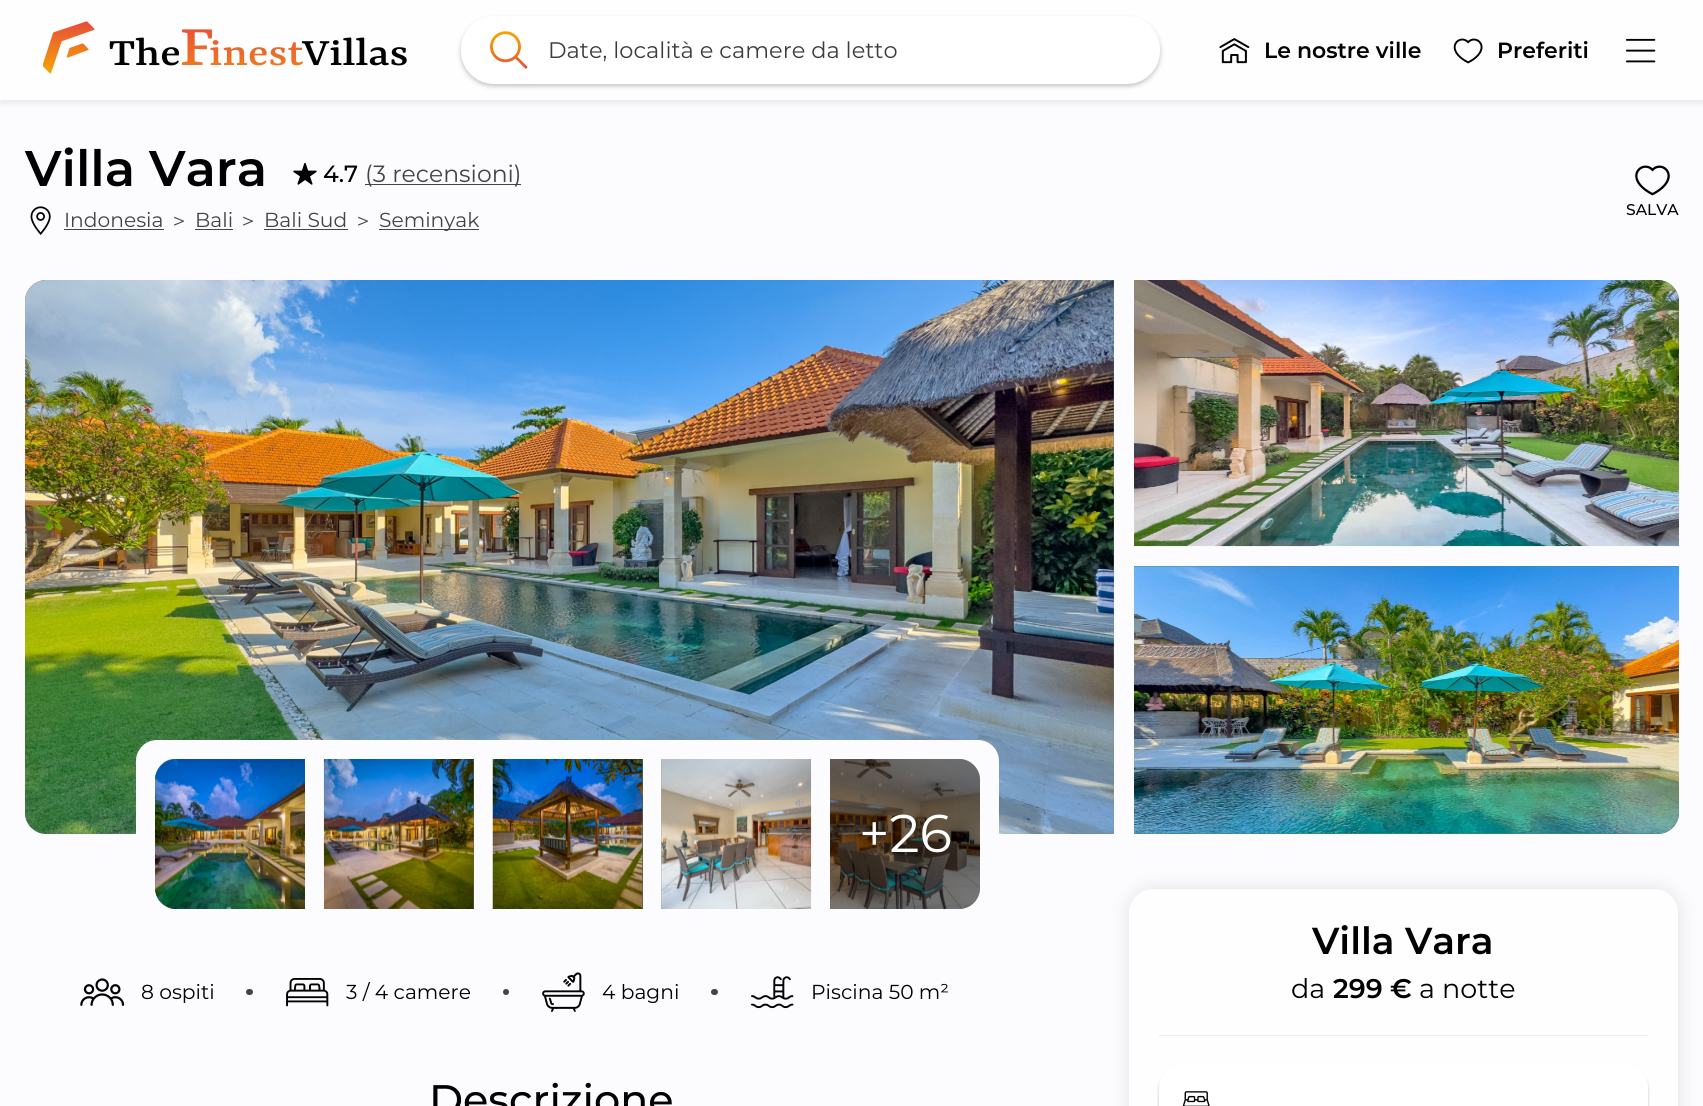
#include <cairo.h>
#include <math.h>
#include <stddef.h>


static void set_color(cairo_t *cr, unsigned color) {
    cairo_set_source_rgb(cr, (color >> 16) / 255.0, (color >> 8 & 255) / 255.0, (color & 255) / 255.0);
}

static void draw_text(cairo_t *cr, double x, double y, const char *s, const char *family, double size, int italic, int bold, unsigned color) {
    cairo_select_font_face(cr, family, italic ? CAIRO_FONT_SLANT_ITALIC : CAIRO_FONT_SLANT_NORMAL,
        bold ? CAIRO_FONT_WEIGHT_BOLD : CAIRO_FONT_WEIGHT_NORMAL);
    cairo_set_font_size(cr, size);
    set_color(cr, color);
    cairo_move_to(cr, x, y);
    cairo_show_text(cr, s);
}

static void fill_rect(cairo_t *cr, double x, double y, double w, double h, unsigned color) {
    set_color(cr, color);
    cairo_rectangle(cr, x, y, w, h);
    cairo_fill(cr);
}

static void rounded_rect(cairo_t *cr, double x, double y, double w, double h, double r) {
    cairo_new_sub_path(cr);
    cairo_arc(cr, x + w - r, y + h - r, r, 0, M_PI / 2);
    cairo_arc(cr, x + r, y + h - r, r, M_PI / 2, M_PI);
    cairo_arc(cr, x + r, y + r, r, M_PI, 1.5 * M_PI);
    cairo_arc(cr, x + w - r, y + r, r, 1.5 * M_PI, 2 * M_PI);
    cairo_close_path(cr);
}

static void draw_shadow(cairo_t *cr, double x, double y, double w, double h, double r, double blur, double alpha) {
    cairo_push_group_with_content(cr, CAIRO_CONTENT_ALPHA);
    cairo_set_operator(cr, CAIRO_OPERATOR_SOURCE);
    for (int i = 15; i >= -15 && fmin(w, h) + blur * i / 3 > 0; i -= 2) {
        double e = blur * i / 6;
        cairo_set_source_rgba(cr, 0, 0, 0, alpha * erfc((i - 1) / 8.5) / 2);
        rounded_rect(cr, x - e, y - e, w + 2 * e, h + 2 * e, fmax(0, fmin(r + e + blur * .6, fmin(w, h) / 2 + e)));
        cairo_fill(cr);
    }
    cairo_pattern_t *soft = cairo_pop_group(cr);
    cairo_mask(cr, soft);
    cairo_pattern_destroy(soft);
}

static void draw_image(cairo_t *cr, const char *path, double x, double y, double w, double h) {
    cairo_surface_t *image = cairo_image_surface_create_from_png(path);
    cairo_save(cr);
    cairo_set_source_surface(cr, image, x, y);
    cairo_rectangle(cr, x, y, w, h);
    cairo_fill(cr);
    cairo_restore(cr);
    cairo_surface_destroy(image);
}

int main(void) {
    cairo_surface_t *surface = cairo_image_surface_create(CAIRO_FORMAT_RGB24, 1703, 1106);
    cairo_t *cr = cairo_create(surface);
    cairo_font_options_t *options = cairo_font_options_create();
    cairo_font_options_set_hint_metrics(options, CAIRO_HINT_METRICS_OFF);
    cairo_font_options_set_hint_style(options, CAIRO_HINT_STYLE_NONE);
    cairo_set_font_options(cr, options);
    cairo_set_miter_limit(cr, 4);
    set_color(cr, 0xFCFCFE);
    cairo_paint(cr);
    set_color(cr, 0x000000);
    draw_shadow(cr, 0, 4, 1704, 100, 0, 3, 0.07);
    fill_rect(cr, 0, 0, 1703, 100, 0xFEFEFF);
    draw_image(cr, "assets/img1.png", 43, 21, 364, 53);
    set_color(cr, 0x000000);
    draw_shadow(cr, 461, 19, 699, 67, 33, 2.5, 0.25);
    set_color(cr, 0xFFFFFF);
    rounded_rect(cr, 461, 16, 699, 68, 33);
    cairo_fill(cr);
    draw_image(cr, "assets/img2.png", 490, 31, 38, 38);
    draw_text(cr, 548, 58, "Date, località e camere da letto", "Montserrat", 22.5, 0, 0, 0x3C3C3C);
    draw_image(cr, "assets/img3.png", 1219, 38, 31, 26);
    draw_text(cr, 1264, 58, "Le nostre ville", "Montserrat SemiBold", 22, 0, 0, 0x000000);
    draw_image(cr, "assets/img4.png", 1453, 38, 30, 26);
    draw_text(cr, 1497, 58, "Preferiti", "Montserrat SemiBold", 22, 0, 0, 0x000000);
    draw_image(cr, "assets/img5.png", 1626, 38, 30, 25);
    draw_text(cr, 25, 186, "Villa Vara", "Montserrat SemiBold", 50, 0, 0, 0x000000);
    draw_image(cr, "assets/img6.png", 293, 162, 24, 23);
    draw_text(cr, 323, 182, "4.7", "Montserrat Medium", 23.5, 0, 0, 0x000000);
    fill_rect(cr, 365, 184, 156, 1, 0x444444);
    draw_text(cr, 365, 182, "(3 recensioni)", "Montserrat", 23.5, 0, 0, 0x444444);
    draw_image(cr, "assets/img7.png", 30, 206, 21, 29);
    draw_text(cr, 64, 227, "Indonesia", "Montserrat", 20.25, 0, 0, 0x444444);
    fill_rect(cr, 64, 229, 100, 1, 0x444444);
    draw_text(cr, 169, 227, "＞", "WenQuanYi Zen Hei Medium", 20.25, 0, 0, 0x444444);
    draw_text(cr, 195, 227, "Bali", "Montserrat", 20.25, 0, 0, 0x444444);
    fill_rect(cr, 195, 229, 38, 1, 0x444444);
    draw_text(cr, 238, 227, "＞", "WenQuanYi Zen Hei Medium", 20.25, 0, 0, 0x444444);
    draw_text(cr, 264, 227, "Bali Sud", "Montserrat", 20.25, 0, 0, 0x444444);
    fill_rect(cr, 264, 229, 84, 1, 0x444444);
    draw_text(cr, 353, 227, "＞", "WenQuanYi Zen Hei Medium", 20.25, 0, 0, 0x444444);
    fill_rect(cr, 379, 229, 100, 1, 0x444444);
    draw_text(cr, 379, 227, "Seminyak", "Montserrat", 20.25, 0, 0, 0x444444);
    draw_image(cr, "assets/img8.png", 1635, 165, 35, 31);
    draw_text(cr, 1626, 215, "SALVA", "Montserrat Medium", 15.5, 0, 0, 0x000000);
    set_color(cr, 0x6B8C95);
    cairo_new_path(cr);
    cairo_move_to(cr, 46, 280);
    cairo_line_to(cr, 1114, 280);
    cairo_line_to(cr, 1114, 834);
    cairo_line_to(cr, 46, 834);
    cairo_curve_to(cr, 34.5, 834, 25, 824.5, 25, 813);
    cairo_line_to(cr, 25, 301);
    cairo_curve_to(cr, 25, 289.5, 34.5, 280, 46, 280);
    cairo_close_path(cr);
    cairo_fill(cr);
    draw_image(cr, "assets/img9.png", 25, 280, 1089, 554);
    set_color(cr, 0x7B97A6);
    cairo_new_path(cr);
    cairo_move_to(cr, 1134, 280);
    cairo_line_to(cr, 1658, 280);
    cairo_curve_to(cr, 1669.5, 280, 1679, 289.5, 1679, 301);
    cairo_line_to(cr, 1679, 546);
    cairo_line_to(cr, 1134, 546);
    cairo_close_path(cr);
    cairo_fill(cr);
    draw_image(cr, "assets/img10.png", 1134, 280, 545, 267);
    set_color(cr, 0x4B8697);
    cairo_new_path(cr);
    cairo_move_to(cr, 1134, 566);
    cairo_line_to(cr, 1679, 566);
    cairo_line_to(cr, 1679, 813);
    cairo_curve_to(cr, 1679, 824.5, 1669.5, 834, 1658, 834);
    cairo_line_to(cr, 1134, 834);
    cairo_close_path(cr);
    cairo_fill(cr);
    draw_image(cr, "assets/img11.png", 1134, 566, 545, 268);
    set_color(cr, 0xFCFCFE);
    rounded_rect(cr, 136, 740, 863, 188, 21);
    cairo_fill(cr);
    set_color(cr, 0x476266);
    cairo_new_path(cr);
    cairo_move_to(cr, 176, 759);
    cairo_line_to(cr, 305, 759);
    cairo_line_to(cr, 305, 909);
    cairo_line_to(cr, 176, 909);
    cairo_curve_to(cr, 164.5, 909, 155, 899.5, 155, 888);
    cairo_line_to(cr, 155, 780);
    cairo_curve_to(cr, 155, 768.5, 164.5, 759, 176, 759);
    cairo_close_path(cr);
    cairo_fill(cr);
    draw_image(cr, "assets/img12.png", 155, 759, 150, 150);
    fill_rect(cr, 473, 759, 1, 150, 0x5F6553);
    draw_image(cr, "assets/img13.png", 323, 759, 151, 150);
    fill_rect(cr, 642, 759, 1, 150, 0x545D49);
    draw_image(cr, "assets/img14.png", 492, 759, 151, 150);
    fill_rect(cr, 661, 759, 1, 150, 0xB1A9A0);
    draw_image(cr, "assets/img15.png", 661, 759, 151, 150);
    set_color(cr, 0xA89683);
    cairo_new_path(cr);
    cairo_move_to(cr, 830, 759);
    cairo_line_to(cr, 959, 759);
    cairo_curve_to(cr, 970.5, 759, 980, 768.5, 980, 780);
    cairo_line_to(cr, 980, 888);
    cairo_curve_to(cr, 980, 899.5, 970.5, 909, 959, 909);
    cairo_line_to(cr, 830, 909);
    cairo_close_path(cr);
    cairo_fill(cr);
    draw_image(cr, "assets/img16.png", 830, 759, 150, 150);
    cairo_set_source_rgba(cr, 0, 0, 0, 0.5);
    cairo_new_path(cr);
    cairo_move_to(cr, 830, 759);
    cairo_line_to(cr, 959, 759);
    cairo_curve_to(cr, 970.5, 759, 980, 768.5, 980, 780);
    cairo_line_to(cr, 980, 888);
    cairo_curve_to(cr, 980, 899.5, 970.5, 909, 959, 909);
    cairo_line_to(cr, 830, 909);
    cairo_close_path(cr);
    cairo_fill(cr);
    draw_text(cr, 859, 852, "+26", "Montserrat", 53, 0, 0, 0xFFFFFF);
    set_color(cr, 0x000000);
    draw_shadow(cr, 1128, 888, 551, 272, 25, 9.5, 0.1);
    set_color(cr, 0xFEFEFF);
    cairo_new_path(cr);
    cairo_move_to(cr, 1153, 888);
    cairo_line_to(cr, 1654, 888);
    cairo_curve_to(cr, 1668, 888, 1679, 899, 1679, 913);
    cairo_line_to(cr, 1679, 1106);
    cairo_line_to(cr, 1128, 1106);
    cairo_line_to(cr, 1128, 913);
    cairo_curve_to(cr, 1128, 899, 1139, 888, 1153, 888);
    cairo_close_path(cr);
    cairo_fill(cr);
    rounded_rect(cr, 1128.5, 888.5, 550, 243, 24.5);
    set_color(cr, 0xEEEEEE);
    cairo_set_line_width(cr, 1);
    cairo_stroke(cr);
    draw_text(cr, 1312, 954, "Villa Vara", "Montserrat SemiBold", 37.5, 0, 0, 0x000000);
    draw_text(cr, 1291, 998, "da", "Montserrat", 27, 0, 0, 0x000000);
    draw_text(cr, 1333, 998, "299 €", "Montserrat SemiBold", 27, 0, 0, 0x000000);
    draw_text(cr, 1419, 998, "a notte", "Montserrat", 27, 0, 0, 0x000000);
    fill_rect(cr, 1159, 1035, 489, 1, 0xEBEBEB);
    set_color(cr, 0x000000);
    draw_shadow(cr, 1159, 1069, 489, 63, 21, 1.5, 0.23);
    set_color(cr, 0xFFFFFF);
    cairo_new_path(cr);
    cairo_move_to(cr, 1180, 1066);
    cairo_line_to(cr, 1627, 1066);
    cairo_curve_to(cr, 1638.5, 1066, 1648, 1075.5, 1648, 1087);
    cairo_line_to(cr, 1648, 1106);
    cairo_line_to(cr, 1159, 1106);
    cairo_line_to(cr, 1159, 1087);
    cairo_curve_to(cr, 1159, 1075.5, 1168.5, 1066, 1180, 1066);
    cairo_close_path(cr);
    cairo_fill(cr);
    draw_image(cr, "assets/img17.png", 1182, 1091, 28, 15);
    draw_image(cr, "assets/img18.png", 80, 978, 45, 28);
    draw_text(cr, 141, 999, "8 ospiti", "Montserrat", 20.25, 0, 0, 0x000000);
    set_color(cr, 0x444444);
    rounded_rect(cr, 246, 989, 7, 6, 3);
    cairo_fill(cr);
    draw_image(cr, "assets/img19.png", 286, 978, 43, 29);
    draw_text(cr, 346, 999, "3 / 4 camere", "Montserrat", 20.25, 0, 0, 0x000000);
    set_color(cr, 0x444444);
    cairo_new_path(cr);
    cairo_arc(cr, 506, 992, 3, 0, 2 * M_PI);
    cairo_fill(cr);
    draw_image(cr, "assets/img20.png", 542, 972, 43, 40);
    draw_text(cr, 602, 999, "4 bagni", "Montserrat", 20.25, 0, 0, 0x000000);
    set_color(cr, 0x444444);
    rounded_rect(cr, 711, 989, 7, 6, 3);
    cairo_fill(cr);
    draw_image(cr, "assets/img21.png", 751, 976, 43, 33);
    draw_text(cr, 811, 999, "Piscina 50 m²", "Montserrat", 20.25, 0, 0, 0x000000);
    draw_text(cr, 429, 1114, "Descrizione", "Montserrat Medium", 41.25, 0, 0, 0x000000);
    cairo_surface_write_to_png(surface, "output.png");
    cairo_font_options_destroy(options);
    cairo_destroy(cr);
    cairo_surface_destroy(surface);
    return 0;
}
